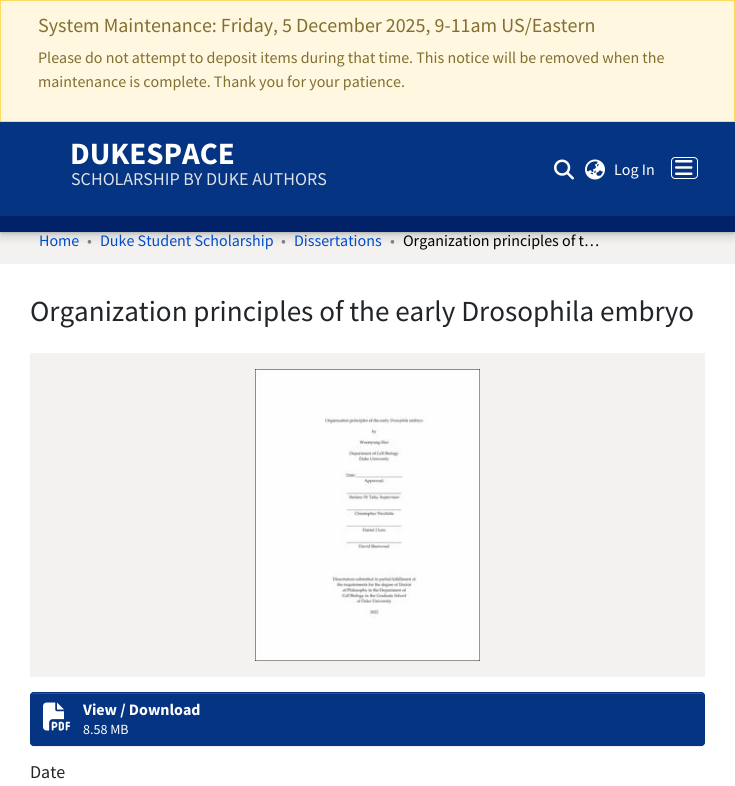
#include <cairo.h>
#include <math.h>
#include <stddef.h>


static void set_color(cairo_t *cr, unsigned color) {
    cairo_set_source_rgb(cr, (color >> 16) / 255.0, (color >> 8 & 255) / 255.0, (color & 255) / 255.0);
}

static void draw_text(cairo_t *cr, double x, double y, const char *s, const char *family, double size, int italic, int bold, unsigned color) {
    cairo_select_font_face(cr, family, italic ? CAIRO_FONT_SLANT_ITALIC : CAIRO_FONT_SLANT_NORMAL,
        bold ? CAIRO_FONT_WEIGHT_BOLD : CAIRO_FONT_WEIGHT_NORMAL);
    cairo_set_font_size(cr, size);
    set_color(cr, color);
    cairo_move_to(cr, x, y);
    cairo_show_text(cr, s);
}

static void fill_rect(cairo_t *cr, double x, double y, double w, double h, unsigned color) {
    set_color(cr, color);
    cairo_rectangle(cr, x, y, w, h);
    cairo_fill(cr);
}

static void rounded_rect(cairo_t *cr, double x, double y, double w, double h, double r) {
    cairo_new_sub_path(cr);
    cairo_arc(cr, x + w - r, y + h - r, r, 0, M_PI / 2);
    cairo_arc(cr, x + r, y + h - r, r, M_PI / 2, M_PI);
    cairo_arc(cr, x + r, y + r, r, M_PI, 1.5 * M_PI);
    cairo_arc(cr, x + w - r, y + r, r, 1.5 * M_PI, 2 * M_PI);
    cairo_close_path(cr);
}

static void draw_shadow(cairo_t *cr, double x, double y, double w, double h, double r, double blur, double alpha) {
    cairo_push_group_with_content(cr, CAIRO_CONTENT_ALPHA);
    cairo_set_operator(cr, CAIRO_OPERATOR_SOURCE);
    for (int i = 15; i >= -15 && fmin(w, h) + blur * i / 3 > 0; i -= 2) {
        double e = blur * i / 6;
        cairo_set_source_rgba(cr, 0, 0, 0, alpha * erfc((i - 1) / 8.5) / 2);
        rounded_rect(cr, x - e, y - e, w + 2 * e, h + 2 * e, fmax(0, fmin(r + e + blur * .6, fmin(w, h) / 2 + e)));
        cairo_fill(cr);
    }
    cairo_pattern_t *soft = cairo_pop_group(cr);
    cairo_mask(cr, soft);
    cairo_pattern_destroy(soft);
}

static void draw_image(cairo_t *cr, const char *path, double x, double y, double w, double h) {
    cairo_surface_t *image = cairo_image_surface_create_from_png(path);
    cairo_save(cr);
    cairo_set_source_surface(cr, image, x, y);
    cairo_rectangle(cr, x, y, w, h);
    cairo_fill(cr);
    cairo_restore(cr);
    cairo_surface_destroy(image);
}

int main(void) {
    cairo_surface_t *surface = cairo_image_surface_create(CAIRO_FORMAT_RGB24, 735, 786);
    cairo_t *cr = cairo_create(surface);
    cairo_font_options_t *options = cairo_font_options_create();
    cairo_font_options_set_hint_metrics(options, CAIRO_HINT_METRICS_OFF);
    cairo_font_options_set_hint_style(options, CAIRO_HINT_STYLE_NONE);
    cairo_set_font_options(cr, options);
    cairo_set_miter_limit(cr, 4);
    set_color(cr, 0xF3F2F1);
    cairo_paint(cr);
    set_color(cr, 0xFFF7DF);
    cairo_rectangle(cr, 0.5, 0.5, 734, 121);
    cairo_fill_preserve(cr);
    set_color(cr, 0xFFD960);
    cairo_set_line_width(cr, 1);
    cairo_stroke(cr);
    draw_text(cr, 38, 32, "System Maintenance: Friday, 5 December 2025, 9-11am US/Eastern", "Source Sans Pro", 20, 0, 0, 0x826F31);
    draw_text(cr, 38, 63, "Please do not attempt to deposit items during that time. This notice will be removed when the", "Source Sans Pro", 16, 0, 0, 0x826F31);
    draw_text(cr, 38, 87, "maintenance is complete. Thank you for your patience.", "Source Sans Pro", 16, 0, 0, 0x826F31);
    set_color(cr, 0x000000);
    draw_shadow(cr, 0, 138, 735, 94, 0, 8, 0.06);
    fill_rect(cr, 0, 122, 735, 94, 0x053482);
    draw_text(cr, 70, 164, "DUKESPACE", "Source Sans Pro", 31, 0, 1, 0xFFFFFF);
    draw_text(cr, 71, 185, "SCHOLARSHIP BY DUKE AUTHORS", "Source Sans Pro", 18, 0, 0, 0xDEE2E6);
    draw_image(cr, "assets/img1.png", 554, 159, 20, 21);
    draw_image(cr, "assets/img2.png", 585, 159, 20, 21);
    draw_text(cr, 614, 175, "Log In", "Source Sans Pro", 16, 0, 0, 0xFFFFFF);
    rounded_rect(cr, 671.5, 157.5, 26, 21, 3.5);
    cairo_stroke(cr);
    draw_image(cr, "assets/img3.png", 675, 160, 18, 15);
    set_color(cr, 0x000000);
    draw_shadow(cr, 0, 224, 735, 16, 0, 4, 0.06);
    draw_shadow(cr, 0, 220, 735, 16, 0, 2, 0.06);
    draw_shadow(cr, 0, 218, 735, 16, 0, 1, 0.06);
    draw_shadow(cr, 0, 217, 735, 16, 0, 0.5, 0.06);
    fill_rect(cr, 0, 216, 735, 16, 0x012169);
    draw_text(cr, 39, 246, "Home", "Source Sans Pro", 16, 0, 0, 0x004CCC);
    draw_text(cr, 87, 246, "•", "Source Sans Pro", 16, 0, 0, 0x808080);
    draw_text(cr, 100, 246, "Duke Student Scholarship", "Source Sans Pro", 16, 0, 0, 0x004CCC);
    draw_text(cr, 281, 246, "•", "Source Sans Pro", 16, 0, 0, 0x808080);
    draw_text(cr, 294, 246, "Dissertations", "Source Sans Pro", 16, 0, 0, 0x004CCC);
    draw_text(cr, 390, 246, "•", "Source Sans Pro", 16, 0, 0, 0x808080);
    draw_text(cr, 403, 246, "Organization principles of t…", "Source Sans Pro", 16, 0, 0, 0x000000);
    fill_rect(cr, 0, 264, 735, 522, 0xFFFFFF);
    draw_text(cr, 30, 321, "Organization principles of the early Drosophila embryo", "Source Sans Pro", 29.1, 0, 0, 0x212529);
    fill_rect(cr, 30, 353, 675, 324, 0xF3F2F1);
    draw_image(cr, "assets/img4.png", 255, 369, 225, 292);
    set_color(cr, 0x000000);
    draw_shadow(cr, 30, 693, 675, 54, 4, 0.5, 0.07);
    set_color(cr, 0x053482);
    rounded_rect(cr, 30, 692, 675, 54, 4);
    cairo_fill(cr);
    set_color(cr, 0x2B5295);
    cairo_new_path(cr);
    cairo_move_to(cr, 34, 694);
    cairo_line_to(cr, 701, 694);
    cairo_curve_to(cr, 703, 694, 704, 695, 704, 697);
    cairo_line_to(cr, 704, 696);
    cairo_curve_to(cr, 704, 694, 703, 693, 701, 693);
    cairo_line_to(cr, 34, 693);
    cairo_curve_to(cr, 32, 693, 31, 694, 31, 696);
    cairo_line_to(cr, 31, 697);
    cairo_curve_to(cr, 31, 695, 32, 694, 34, 694);
    cairo_close_path(cr);
    cairo_fill(cr);
    rounded_rect(cr, 30.5, 692.5, 674, 53, 3.5);
    set_color(cr, 0x053482);
    cairo_stroke(cr);
    draw_image(cr, "assets/img5.png", 43, 702, 28, 29);
    draw_text(cr, 83, 715, "View / Download", "Source Sans Pro", 16, 0, 1, 0xFFFFFF);
    draw_text(cr, 83, 734, "8.58 MB", "Source Sans Pro", 14, 0, 0, 0xFFFFFF);
    draw_text(cr, 30, 778, "Date", "Source Sans Pro", 18, 0, 0, 0x212529);
    cairo_surface_write_to_png(surface, "output.png");
    cairo_font_options_destroy(options);
    cairo_destroy(cr);
    cairo_surface_destroy(surface);
    return 0;
}
